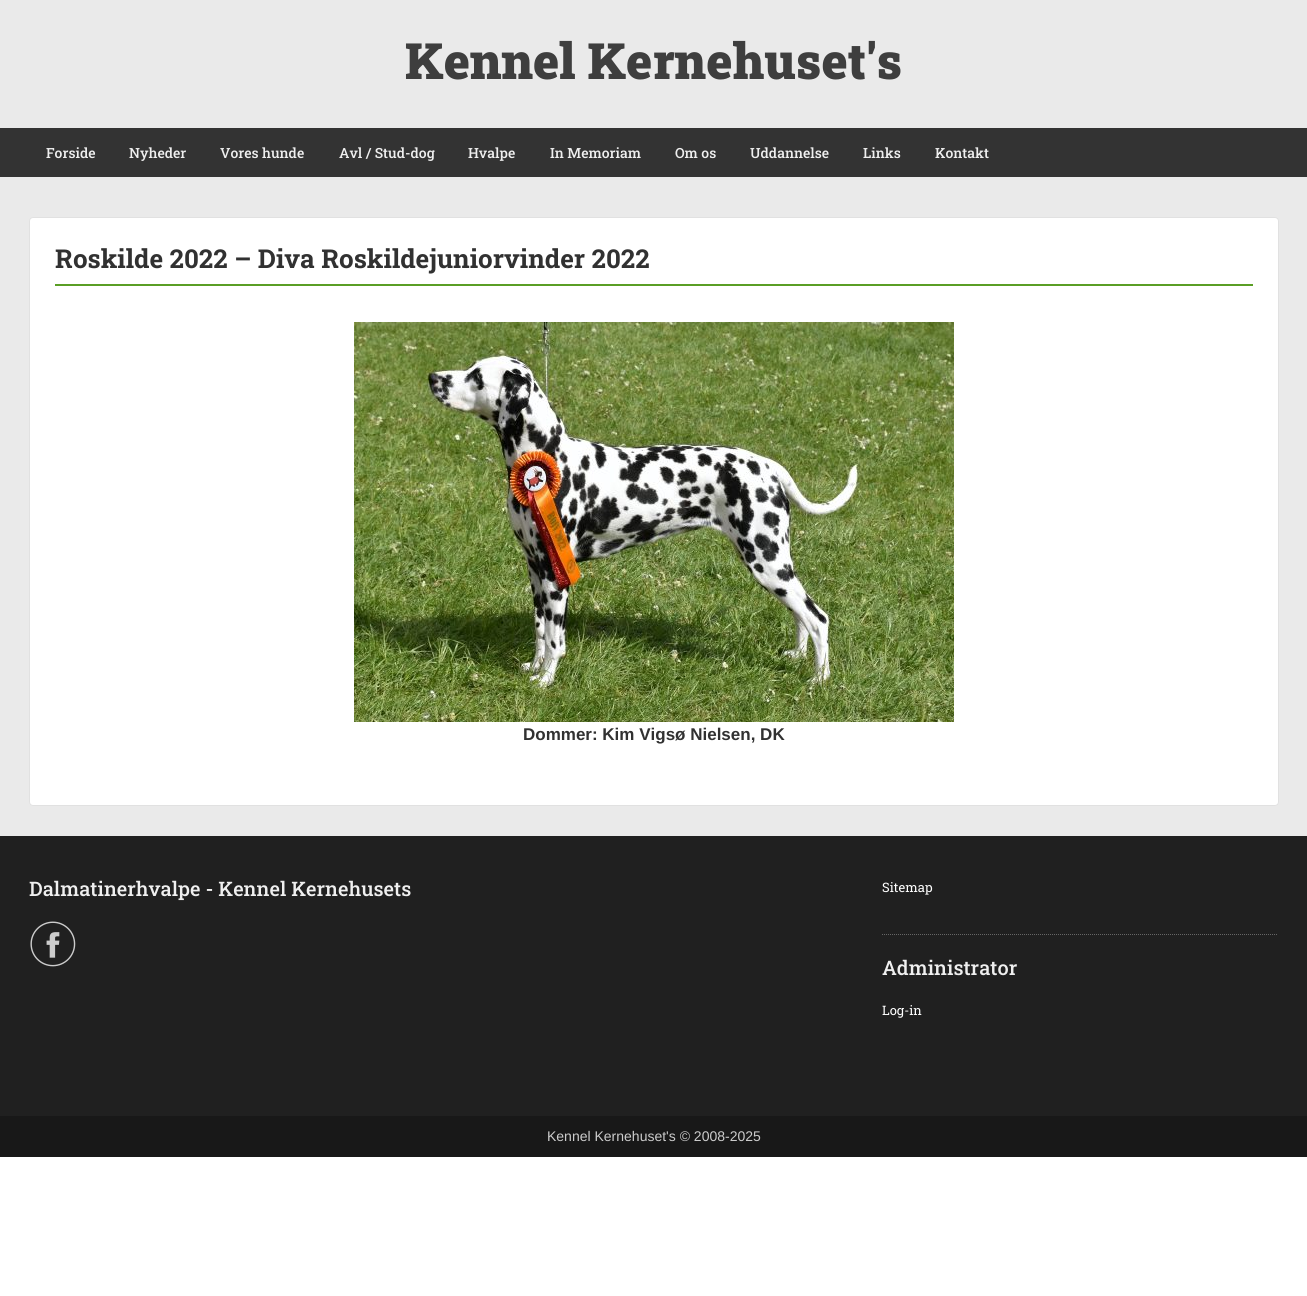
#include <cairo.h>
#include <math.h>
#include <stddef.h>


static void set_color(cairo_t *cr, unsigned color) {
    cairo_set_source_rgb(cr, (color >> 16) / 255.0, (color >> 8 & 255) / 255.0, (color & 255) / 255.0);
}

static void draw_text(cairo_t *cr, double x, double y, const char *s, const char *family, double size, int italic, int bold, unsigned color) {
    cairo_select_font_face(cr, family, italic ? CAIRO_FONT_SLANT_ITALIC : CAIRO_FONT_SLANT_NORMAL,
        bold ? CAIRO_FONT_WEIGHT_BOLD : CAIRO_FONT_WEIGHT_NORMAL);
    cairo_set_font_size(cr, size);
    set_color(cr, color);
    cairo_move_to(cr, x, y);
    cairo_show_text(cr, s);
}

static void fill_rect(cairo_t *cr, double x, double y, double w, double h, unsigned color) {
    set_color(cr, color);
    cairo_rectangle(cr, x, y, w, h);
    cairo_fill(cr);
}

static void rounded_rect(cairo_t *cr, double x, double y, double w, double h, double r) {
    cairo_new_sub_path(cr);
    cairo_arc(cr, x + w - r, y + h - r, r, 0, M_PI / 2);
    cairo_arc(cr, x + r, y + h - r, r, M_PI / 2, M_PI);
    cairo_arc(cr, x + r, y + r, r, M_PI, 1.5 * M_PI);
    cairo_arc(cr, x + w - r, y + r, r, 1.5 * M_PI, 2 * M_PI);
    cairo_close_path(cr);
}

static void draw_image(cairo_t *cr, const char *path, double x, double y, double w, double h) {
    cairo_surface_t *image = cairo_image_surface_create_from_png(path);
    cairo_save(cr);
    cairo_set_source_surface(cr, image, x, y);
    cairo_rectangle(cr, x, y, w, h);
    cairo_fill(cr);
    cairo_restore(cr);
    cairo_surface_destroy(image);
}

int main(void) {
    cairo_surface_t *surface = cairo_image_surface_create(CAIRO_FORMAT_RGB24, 1307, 1296);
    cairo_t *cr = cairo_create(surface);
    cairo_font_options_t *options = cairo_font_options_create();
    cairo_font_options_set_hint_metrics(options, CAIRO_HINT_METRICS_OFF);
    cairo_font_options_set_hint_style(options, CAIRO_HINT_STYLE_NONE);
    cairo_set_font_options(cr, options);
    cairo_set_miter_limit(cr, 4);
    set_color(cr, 0xFFFFFF);
    cairo_paint(cr);
    fill_rect(cr, 0, 0, 1307, 836, 0xEAEAEA);
    draw_text(cr, 405, 79, "Kennel Kernehuset's", "Roboto Slab Black", 50, 0, 0, 0x3E3E3E);
    fill_rect(cr, 0, 128, 1307, 49, 0x333333);
    draw_text(cr, 46, 158, "Forside", "Roboto Slab Medium", 14, 0, 0, 0xEFEFEF);
    draw_text(cr, 129, 158, "Nyheder", "Roboto Slab Medium", 14, 0, 0, 0xEFEFEF);
    draw_text(cr, 220, 158, "Vores hunde", "Roboto Slab Medium", 14, 0, 0, 0xEFEFEF);
    draw_text(cr, 339, 158, "Avl / Stud-dog", "Roboto Slab Medium", 14, 0, 0, 0xEFEFEF);
    draw_text(cr, 468, 158, "Hvalpe", "Roboto Slab Medium", 14, 0, 0, 0xEFEFEF);
    draw_text(cr, 550, 158, "In Memoriam", "Roboto Slab Medium", 14, 0, 0, 0xEFEFEF);
    draw_text(cr, 675, 158, "Om os", "Roboto Slab Medium", 14, 0, 0, 0xEFEFEF);
    draw_text(cr, 750, 158, "Uddannelse", "Roboto Slab Medium", 14, 0, 0, 0xEFEFEF);
    draw_text(cr, 863, 158, "Links", "Roboto Slab Medium", 14, 0, 0, 0xEFEFEF);
    draw_text(cr, 935, 158, "Kontakt", "Roboto Slab Medium", 14, 0, 0, 0xEFEFEF);
    set_color(cr, 0xFFFFFF);
    rounded_rect(cr, 29, 217, 1250, 589, 4);
    cairo_fill(cr);
    rounded_rect(cr, 29.5, 217.5, 1249, 588, 3.5);
    cairo_set_source_rgba(cr, 0, 0, 0, 0.12);
    cairo_set_line_width(cr, 1);
    cairo_stroke(cr);
    fill_rect(cr, 55, 284, 1198, 2, 0x5A9E25);
    draw_text(cr, 55, 268, "Roskilde 2022 – Diva Roskildejuniorvinder 2022", "Roboto Slab", 26, 0, 1, 0x313131);
    draw_image(cr, "assets/img1.png", 354, 322, 600, 400);
    draw_text(cr, 523, 740, "Dommer: Kim Vigsø Nielsen, DK", "Liberation Sans", 17, 0, 1, 0x313131);
    fill_rect(cr, 0, 836, 1307, 280, 0x202020);
    draw_text(cr, 29, 896, "Dalmatinerhvalpe - Kennel Kernehusets", "Roboto Slab Medium", 20, 0, 0, 0xEFEFEF);
    draw_image(cr, "assets/img2.png", 30, 921, 46, 46);
    cairo_new_path(cr);
    cairo_move_to(cr, 882, 934.5);
    cairo_line_to(cr, 1278, 934.5);
    set_color(cr, 0x666666);
    cairo_set_dash(cr, (double[]){1, 1}, 2, 0);
    cairo_stroke(cr);
    draw_text(cr, 882, 892, "Sitemap", "Roboto Slab", 13, 0, 0, 0xFFFFFF);
    draw_text(cr, 882, 975, "Administrator", "Roboto Slab Medium", 20, 0, 0, 0xEFEFEF);
    draw_text(cr, 882, 1015, "Log-in", "Roboto Slab", 13, 0, 0, 0xFFFFFF);
    fill_rect(cr, 0, 1116, 1307, 41, 0x181818);
    draw_text(cr, 547, 1141, "Kennel Kernehuset's © 2008-2025", "Liberation Sans", 14, 0, 0, 0xCCCCCC);
    cairo_surface_write_to_png(surface, "output.png");
    cairo_font_options_destroy(options);
    cairo_destroy(cr);
    cairo_surface_destroy(surface);
    return 0;
}
